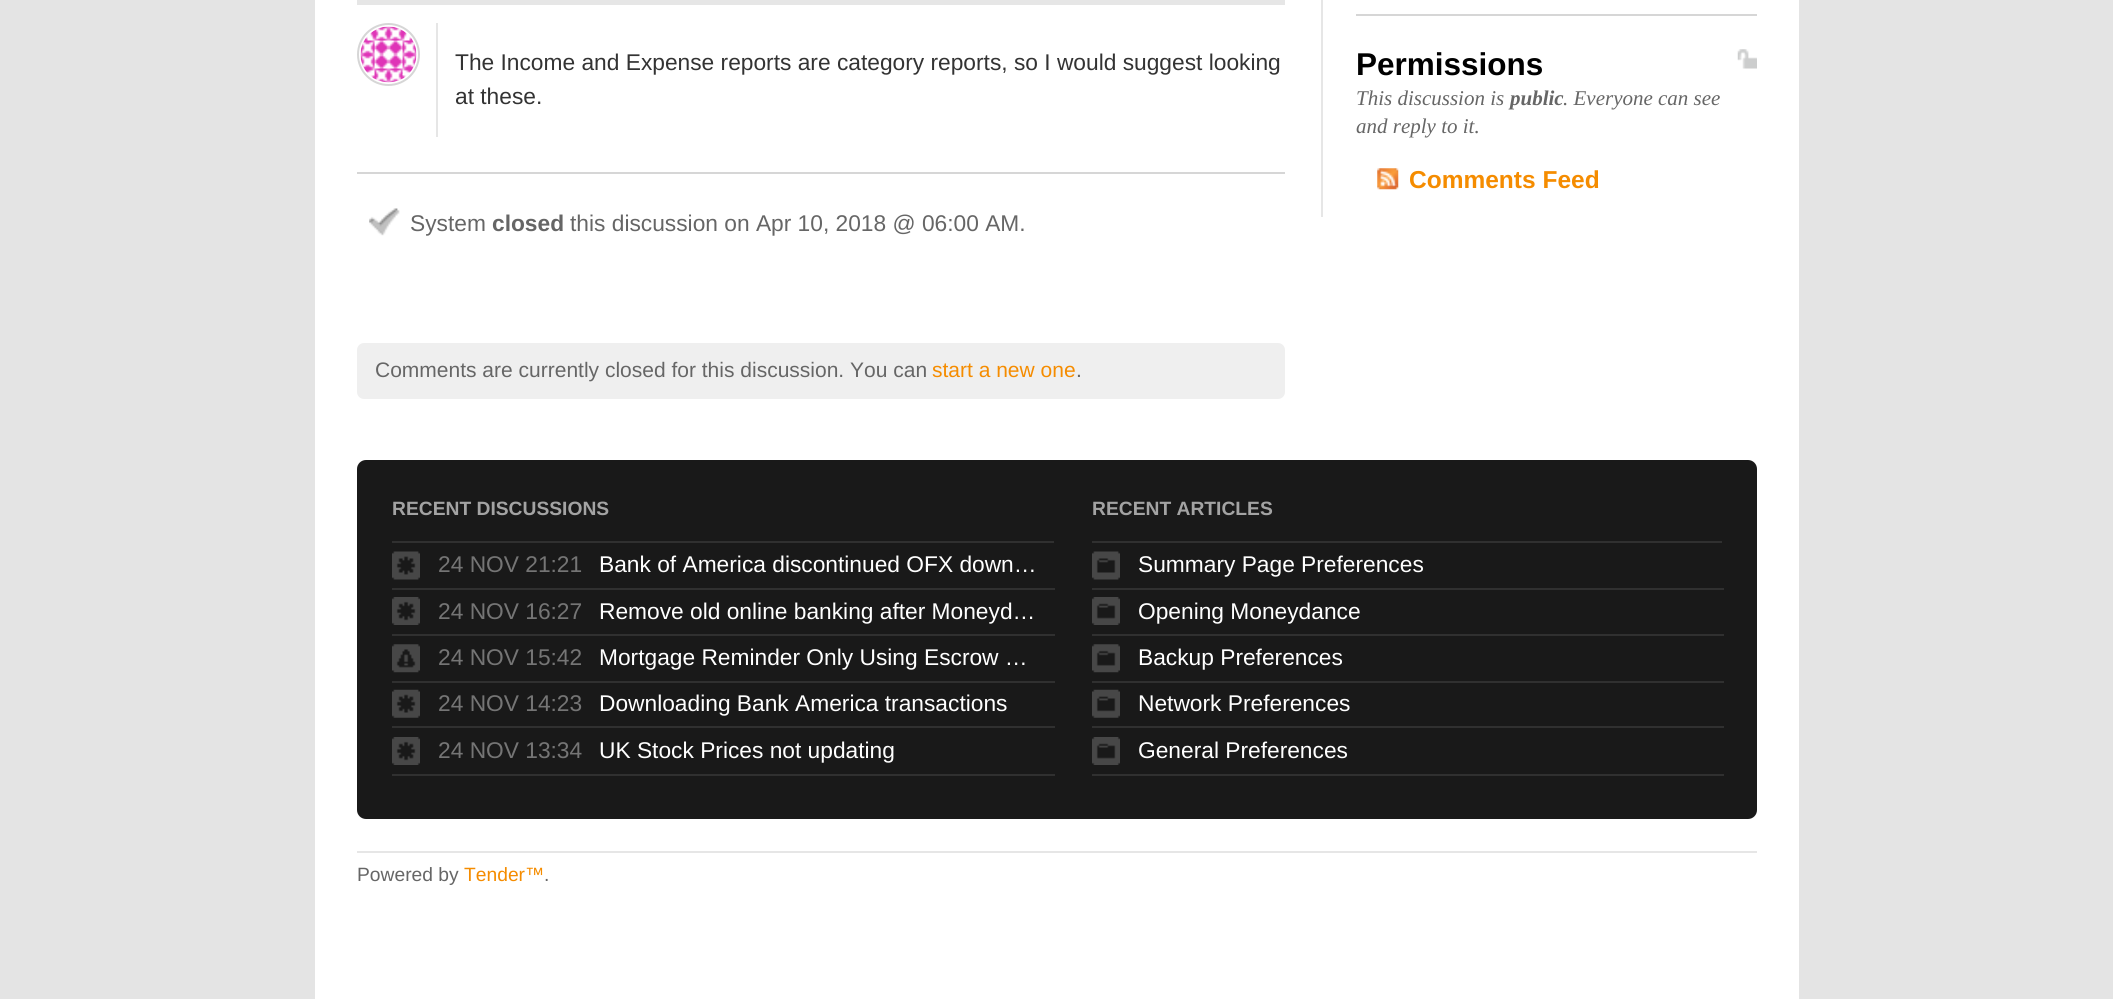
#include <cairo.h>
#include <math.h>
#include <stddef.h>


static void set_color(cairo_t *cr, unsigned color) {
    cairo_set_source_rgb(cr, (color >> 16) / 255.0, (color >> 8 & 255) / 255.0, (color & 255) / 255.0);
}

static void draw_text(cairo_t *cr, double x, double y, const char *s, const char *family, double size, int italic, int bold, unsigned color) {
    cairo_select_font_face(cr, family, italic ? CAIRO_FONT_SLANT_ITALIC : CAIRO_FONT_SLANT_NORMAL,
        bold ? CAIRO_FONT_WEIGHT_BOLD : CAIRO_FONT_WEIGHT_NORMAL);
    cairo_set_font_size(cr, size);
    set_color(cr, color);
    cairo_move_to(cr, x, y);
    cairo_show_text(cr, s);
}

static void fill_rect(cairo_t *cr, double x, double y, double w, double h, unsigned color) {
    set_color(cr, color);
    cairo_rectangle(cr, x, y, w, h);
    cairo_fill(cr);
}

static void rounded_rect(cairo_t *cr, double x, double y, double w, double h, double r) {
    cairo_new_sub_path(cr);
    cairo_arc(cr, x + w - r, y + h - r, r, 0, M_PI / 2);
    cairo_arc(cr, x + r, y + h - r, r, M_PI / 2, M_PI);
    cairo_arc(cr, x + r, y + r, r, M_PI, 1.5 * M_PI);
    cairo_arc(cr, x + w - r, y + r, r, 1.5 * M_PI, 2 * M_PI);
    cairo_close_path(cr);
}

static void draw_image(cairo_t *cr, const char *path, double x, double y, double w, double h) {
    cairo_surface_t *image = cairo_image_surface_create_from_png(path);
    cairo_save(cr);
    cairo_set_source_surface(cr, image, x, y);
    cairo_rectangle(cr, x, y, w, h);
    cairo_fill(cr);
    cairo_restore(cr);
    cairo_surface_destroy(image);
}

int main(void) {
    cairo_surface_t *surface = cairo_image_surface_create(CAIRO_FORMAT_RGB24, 2113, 999);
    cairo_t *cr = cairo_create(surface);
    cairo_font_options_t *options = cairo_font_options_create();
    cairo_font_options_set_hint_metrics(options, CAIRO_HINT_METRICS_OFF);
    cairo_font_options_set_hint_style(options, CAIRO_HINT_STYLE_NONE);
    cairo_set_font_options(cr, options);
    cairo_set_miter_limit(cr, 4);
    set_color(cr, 0xE4E4E4);
    cairo_paint(cr);
    fill_rect(cr, 315, 0, 1484, 999, 0xFFFFFF);
    fill_rect(cr, 357, 0, 928, 5, 0xE6E6E6);
    cairo_arc(cr, 388.5, 54.5, 30.5, 0, 2 * M_PI);
    set_color(cr, 0xD6D6D6);
    cairo_stroke(cr);
    draw_image(cr, "assets/img1.png", 360, 26, 57, 57);
    fill_rect(cr, 436, 23, 2, 114, 0xE6E6E6);
    draw_text(cr, 455, 70, "The Income and Expense reports are category reports, so I would suggest looking", "Liberation Sans", 22.75, 0, 0, 0x333333);
    draw_text(cr, 455, 104, "at these.", "Liberation Sans", 22.75, 0, 0, 0x333333);
    fill_rect(cr, 357, 172, 928, 2, 0xD6D6D6);
    draw_image(cr, "assets/img2.png", 369, 208, 31, 28);
    draw_text(cr, 410, 231, "System", "Liberation Sans", 22.75, 0, 0, 0x666666);
    draw_text(cr, 492, 231, "closed", "Liberation Sans", 22.75, 0, 1, 0x666666);
    draw_text(cr, 570, 231, "this discussion on Apr 10, 2018 @ 06:00 AM.", "Liberation Sans", 22.75, 0, 0, 0x666666);
    set_color(cr, 0xEFEFEF);
    rounded_rect(cr, 357, 343, 928, 56, 7);
    cairo_fill(cr);
    draw_text(cr, 375, 377, "Comments are currently closed for this discussion. You can", "Liberation Sans", 21, 0, 0, 0x666666);
    draw_text(cr, 932, 377, "start a new one", "Liberation Sans", 21, 0, 0, 0xF58C00);
    draw_text(cr, 1076, 377, ".", "Liberation Sans", 21, 0, 0, 0x666666);
    fill_rect(cr, 1321, 0, 2, 217, 0xE6E6E6);
    fill_rect(cr, 1356, 14, 401, 2, 0xD6D6D6);
    draw_text(cr, 1356, 75, "Permissions", "Liberation Sans", 31.5, 0, 1, 0x000000);
    draw_image(cr, "assets/img3.png", 1737, 49, 20, 20);
    draw_text(cr, 1356, 105, "This discussion is", "Liberation Serif", 21, 1, 0, 0x666666);
    draw_text(cr, 1510, 105, "public", "Liberation Serif", 21, 1, 1, 0x666666);
    draw_text(cr, 1563, 105, ". Everyone can see", "Liberation Serif", 21, 1, 0, 0x666666);
    draw_text(cr, 1356, 133, "and reply to it.", "Liberation Serif", 21, 1, 0, 0x666666);
    draw_image(cr, "assets/img4.png", 1377, 168, 22, 22);
    draw_text(cr, 1409, 188, "Comments Feed", "Liberation Sans", 24.5, 0, 1, 0xF58C00);
    set_color(cr, 0x191919);
    rounded_rect(cr, 357, 460, 1400, 359, 9);
    cairo_fill(cr);
    draw_text(cr, 392, 515, "RECENT DISCUSSIONS", "Liberation Sans", 19.25, 0, 1, 0xA3A3A3);
    fill_rect(cr, 392, 541, 662, 2, 0x303030);
    draw_image(cr, "assets/img5.png", 392, 551, 28, 29);
    draw_text(cr, 438, 572, "24 NOV 21:21", "Liberation Sans", 22.75, 0, 0, 0x757575);
    fill_rect(cr, 392, 588, 663, 2, 0x303030);
    draw_text(cr, 599, 572, "Bank of America discontinued OFX down…", "Liberation Sans", 22.75, 0, 0, 0xFFFFFF);
    draw_image(cr, "assets/img6.png", 392, 597, 28, 28);
    draw_text(cr, 438, 619, "24 NOV 16:27", "Liberation Sans", 22.75, 0, 0, 0x757575);
    fill_rect(cr, 392, 634, 663, 2, 0x303030);
    draw_text(cr, 599, 619, "Remove old online banking after Moneyd…", "Liberation Sans", 22.75, 0, 0, 0xFFFFFF);
    draw_image(cr, "assets/img7.png", 392, 644, 28, 29);
    draw_text(cr, 438, 665, "24 NOV 15:42", "Liberation Sans", 22.75, 0, 0, 0x757575);
    fill_rect(cr, 392, 681, 663, 2, 0x303030);
    draw_text(cr, 599, 665, "Mortgage Reminder Only Using Escrow …", "Liberation Sans", 22.75, 0, 0, 0xFFFFFF);
    draw_image(cr, "assets/img8.png", 392, 689, 28, 29);
    draw_text(cr, 438, 711, "24 NOV 14:23", "Liberation Sans", 22.75, 0, 0, 0x757575);
    fill_rect(cr, 392, 726, 663, 2, 0x303030);
    draw_text(cr, 599, 711, "Downloading Bank America transactions", "Liberation Sans", 22.75, 0, 0, 0xFFFFFF);
    draw_image(cr, "assets/img6.png", 392, 737, 28, 28);
    draw_text(cr, 438, 758, "24 NOV 13:34", "Liberation Sans", 22.75, 0, 0, 0x757575);
    fill_rect(cr, 392, 774, 663, 2, 0x303030);
    draw_text(cr, 599, 758, "UK Stock Prices not updating", "Liberation Sans", 22.75, 0, 0, 0xFFFFFF);
    draw_text(cr, 1092, 515, "RECENT ARTICLES", "Liberation Sans", 19.25, 0, 1, 0xA3A3A3);
    fill_rect(cr, 1092, 541, 630, 2, 0x303030);
    draw_image(cr, "assets/img9.png", 1092, 551, 28, 29);
    fill_rect(cr, 1092, 588, 632, 2, 0x303030);
    draw_text(cr, 1138, 572, "Summary Page Preferences", "Liberation Sans", 22.75, 0, 0, 0xFFFFFF);
    draw_image(cr, "assets/img10.png", 1092, 597, 28, 28);
    fill_rect(cr, 1092, 634, 632, 2, 0x303030);
    draw_text(cr, 1138, 619, "Opening Moneydance", "Liberation Sans", 22.75, 0, 0, 0xFFFFFF);
    draw_image(cr, "assets/img11.png", 1092, 644, 28, 29);
    fill_rect(cr, 1092, 681, 632, 2, 0x303030);
    draw_text(cr, 1138, 665, "Backup Preferences", "Liberation Sans", 22.75, 0, 0, 0xFFFFFF);
    draw_image(cr, "assets/img12.png", 1092, 689, 28, 29);
    fill_rect(cr, 1092, 726, 632, 2, 0x303030);
    draw_text(cr, 1138, 711, "Network Preferences", "Liberation Sans", 22.75, 0, 0, 0xFFFFFF);
    draw_image(cr, "assets/img10.png", 1092, 737, 28, 28);
    fill_rect(cr, 1092, 774, 632, 2, 0x303030);
    draw_text(cr, 1138, 758, "General Preferences", "Liberation Sans", 22.75, 0, 0, 0xFFFFFF);
    fill_rect(cr, 357, 851, 1400, 2, 0xE6E6E6);
    draw_text(cr, 357, 881, "Powered by", "Liberation Sans", 19.25, 0, 0, 0x666666);
    draw_text(cr, 464, 881, "Tender™", "Liberation Sans", 19.25, 0, 0, 0xF58C00);
    draw_text(cr, 544, 881, ".", "Liberation Sans", 19.25, 0, 0, 0x666666);
    cairo_surface_write_to_png(surface, "output.png");
    cairo_font_options_destroy(options);
    cairo_destroy(cr);
    cairo_surface_destroy(surface);
    return 0;
}
